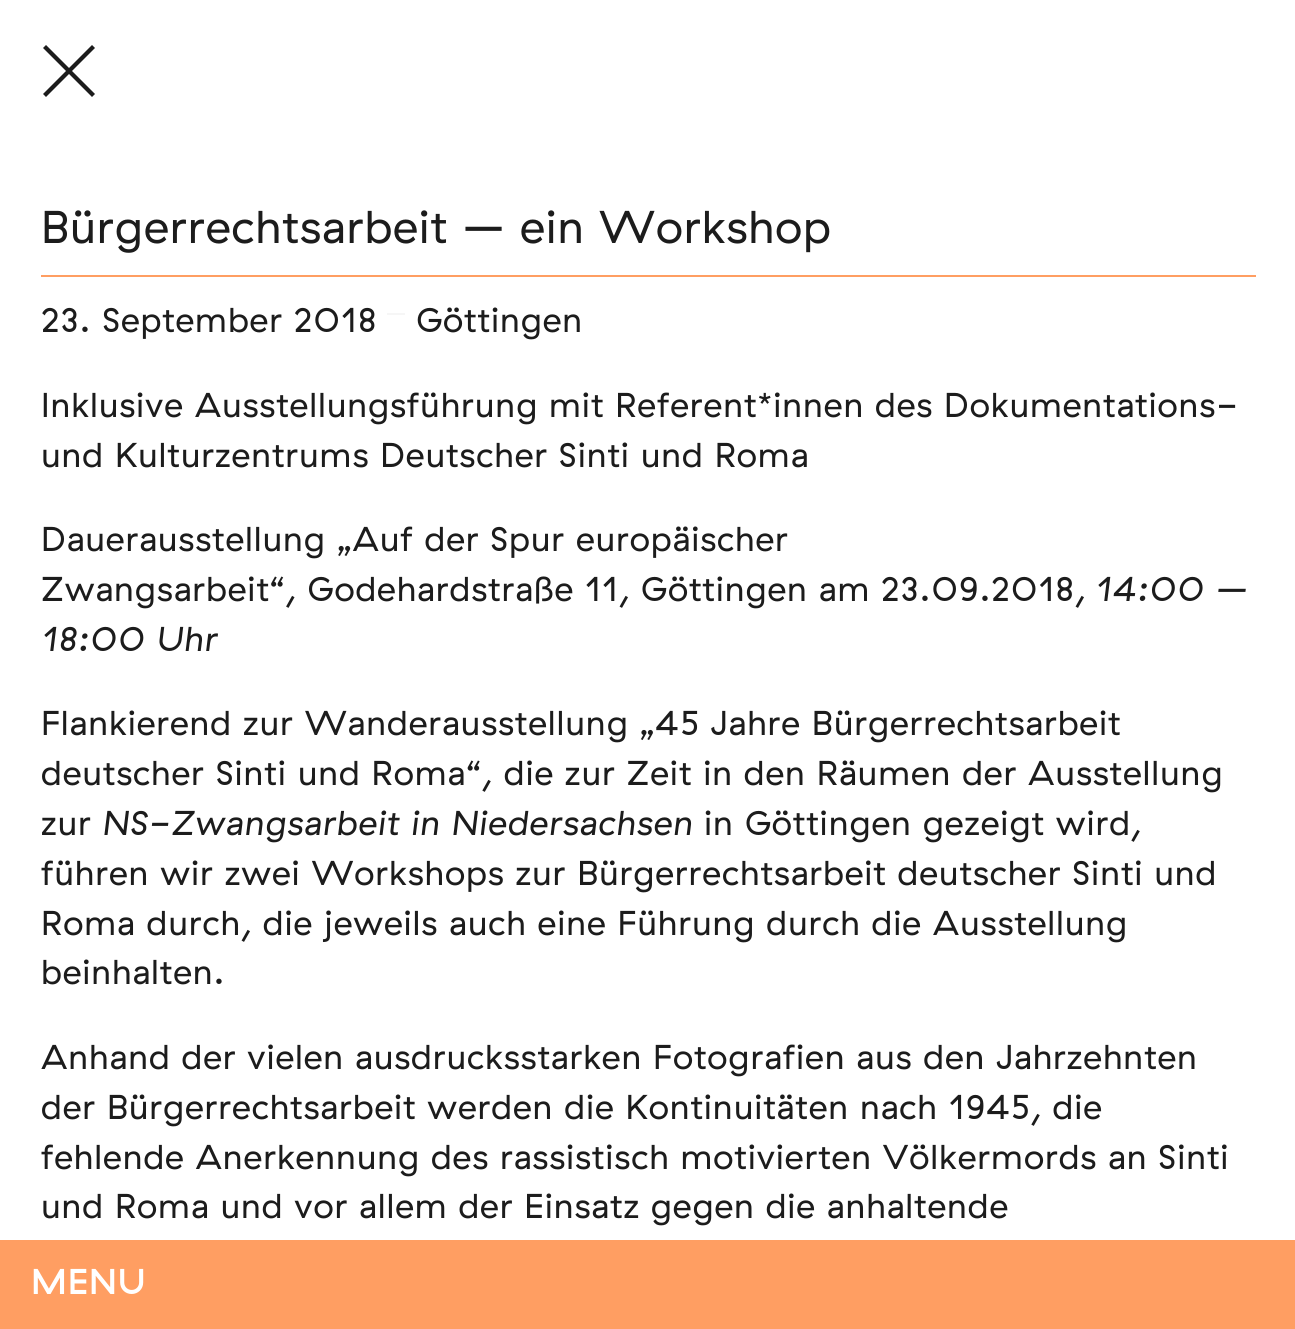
#include <cairo.h>
#include <math.h>
#include <stddef.h>


static void set_color(cairo_t *cr, unsigned color) {
    cairo_set_source_rgb(cr, (color >> 16) / 255.0, (color >> 8 & 255) / 255.0, (color & 255) / 255.0);
}

static void draw_spaced(cairo_t *cr, double x, double y, const char *s, double letter, double word) {
    cairo_move_to(cr, x, y);
    while (*s) {
        char ch[5] = {0};
        int n = 0;
        do ch[n++] = *s++; while ((*s & 0xC0) == 0x80);
        cairo_show_text(cr, ch);
        cairo_rel_move_to(cr, letter + word * (*ch == ' '), 0);
    }
}

static void fill_rect(cairo_t *cr, double x, double y, double w, double h, unsigned color) {
    set_color(cr, color);
    cairo_rectangle(cr, x, y, w, h);
    cairo_fill(cr);
}

int main(void) {
    cairo_surface_t *surface = cairo_image_surface_create(CAIRO_FORMAT_RGB24, 1295, 1329);
    cairo_t *cr = cairo_create(surface);
    cairo_font_options_t *options = cairo_font_options_create();
    cairo_font_options_set_hint_metrics(options, CAIRO_HINT_METRICS_OFF);
    cairo_font_options_set_hint_style(options, CAIRO_HINT_STYLE_NONE);
    cairo_set_font_options(cr, options);
    cairo_set_miter_limit(cr, 4);
    set_color(cr, 0xFFFFFF);
    cairo_paint(cr);
    set_color(cr, 0x1C1C1C);
    cairo_new_path(cr);
    cairo_move_to(cr, 46, 45);
    cairo_line_to(cr, 95, 94);
    cairo_line_to(cr, 92, 97);
    cairo_line_to(cr, 43, 48);
    cairo_close_path(cr);
    cairo_fill(cr);
    cairo_new_path(cr);
    cairo_move_to(cr, 43, 94);
    cairo_line_to(cr, 92, 45);
    cairo_line_to(cr, 95, 48);
    cairo_line_to(cr, 46, 97);
    cairo_close_path(cr);
    cairo_fill(cr);
    cairo_select_font_face(cr, "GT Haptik", CAIRO_FONT_SLANT_NORMAL, CAIRO_FONT_WEIGHT_NORMAL);
    cairo_set_font_size(cr, 45.9);
    draw_spaced(cr, 41, 243, "Bürgerrechtsarbeit – ein Workshop", 0.9, 0);
    fill_rect(cr, 41, 275, 1215, 2, 0xFF9E62);
    cairo_set_font_size(cr, 34.45);
    set_color(cr, 0x1C1C1C);
    draw_spaced(cr, 41, 332, "23. September 2018", 0.9, 0);
    fill_rect(cr, 387, 313, 18, 2, 0xF6F6F6);
    set_color(cr, 0x1C1C1C);
    draw_spaced(cr, 416, 332, "Göttingen", 0.9, 0);
    draw_spaced(cr, 41, 417, "Inklusive Ausstellungsführung mit Referent*innen des Dokumentations-", 0.9, 0);
    draw_spaced(cr, 41, 467, "und Kulturzentrums Deutscher Sinti und Roma", 0.9, 0);
    draw_spaced(cr, 41, 551, "Dauerausstellung „Auf der Spur europäischer", 0.9, 0);
    draw_spaced(cr, 41, 601, "Zwangsarbeit“, Godehardstraße 11, Göttingen am 23.09.2018,", 0.9, 0);
    cairo_select_font_face(cr, "GT Haptik", CAIRO_FONT_SLANT_ITALIC, CAIRO_FONT_WEIGHT_NORMAL);
    draw_spaced(cr, 1095, 601, "14:00 –", 0.9, 0);
    draw_spaced(cr, 41, 651, "18:00 Uhr", 0.9, 0);
    cairo_select_font_face(cr, "GT Haptik", CAIRO_FONT_SLANT_NORMAL, CAIRO_FONT_WEIGHT_NORMAL);
    draw_spaced(cr, 41, 735, "Flankierend zur Wanderausstellung „45 Jahre Bürgerrechtsarbeit", 0.9, 0);
    draw_spaced(cr, 41, 785, "deutscher Sinti und Roma“, die zur Zeit in den Räumen der Ausstellung", 0.9, 0);
    draw_spaced(cr, 41, 835, "zur", 0.9, 0);
    cairo_select_font_face(cr, "GT Haptik", CAIRO_FONT_SLANT_ITALIC, CAIRO_FONT_WEIGHT_NORMAL);
    draw_spaced(cr, 102, 835, "NS-Zwangsarbeit in Niedersachsen", 0.9, 0);
    cairo_select_font_face(cr, "GT Haptik", CAIRO_FONT_SLANT_NORMAL, CAIRO_FONT_WEIGHT_NORMAL);
    draw_spaced(cr, 704, 835, "in Göttingen gezeigt wird,", 0.9, 0);
    draw_spaced(cr, 41, 885, "führen wir zwei Workshops zur Bürgerrechtsarbeit deutscher Sinti und", 0.9, 0);
    draw_spaced(cr, 41, 935, "Roma durch, die jeweils auch eine Führung durch die Ausstellung", 0.9, 0);
    draw_spaced(cr, 41, 984, "beinhalten.", 0.9, 0);
    draw_spaced(cr, 41, 1069, "Anhand der vielen ausdrucksstarken Fotografien aus den Jahrzehnten", 0.9, 0);
    draw_spaced(cr, 41, 1119, "der Bürgerrechtsarbeit werden die Kontinuitäten nach 1945, die", 0.9, 0);
    draw_spaced(cr, 41, 1169, "fehlende Anerkennung des rassistisch motivierten Völkermords an Sinti", 0.9, 0);
    draw_spaced(cr, 41, 1218, "und Roma und vor allem der Einsatz gegen die anhaltende", 0.9, 0);
    fill_rect(cr, 0, 1240, 1295, 89, 0xFF9E62);
    cairo_select_font_face(cr, "GT Haptik", CAIRO_FONT_SLANT_NORMAL, CAIRO_FONT_WEIGHT_BOLD);
    set_color(cr, 0xFFFFFF);
    draw_spaced(cr, 31, 1294, "MENU", 2, 0);
    cairo_surface_write_to_png(surface, "output.png");
    cairo_font_options_destroy(options);
    cairo_destroy(cr);
    cairo_surface_destroy(surface);
    return 0;
}
